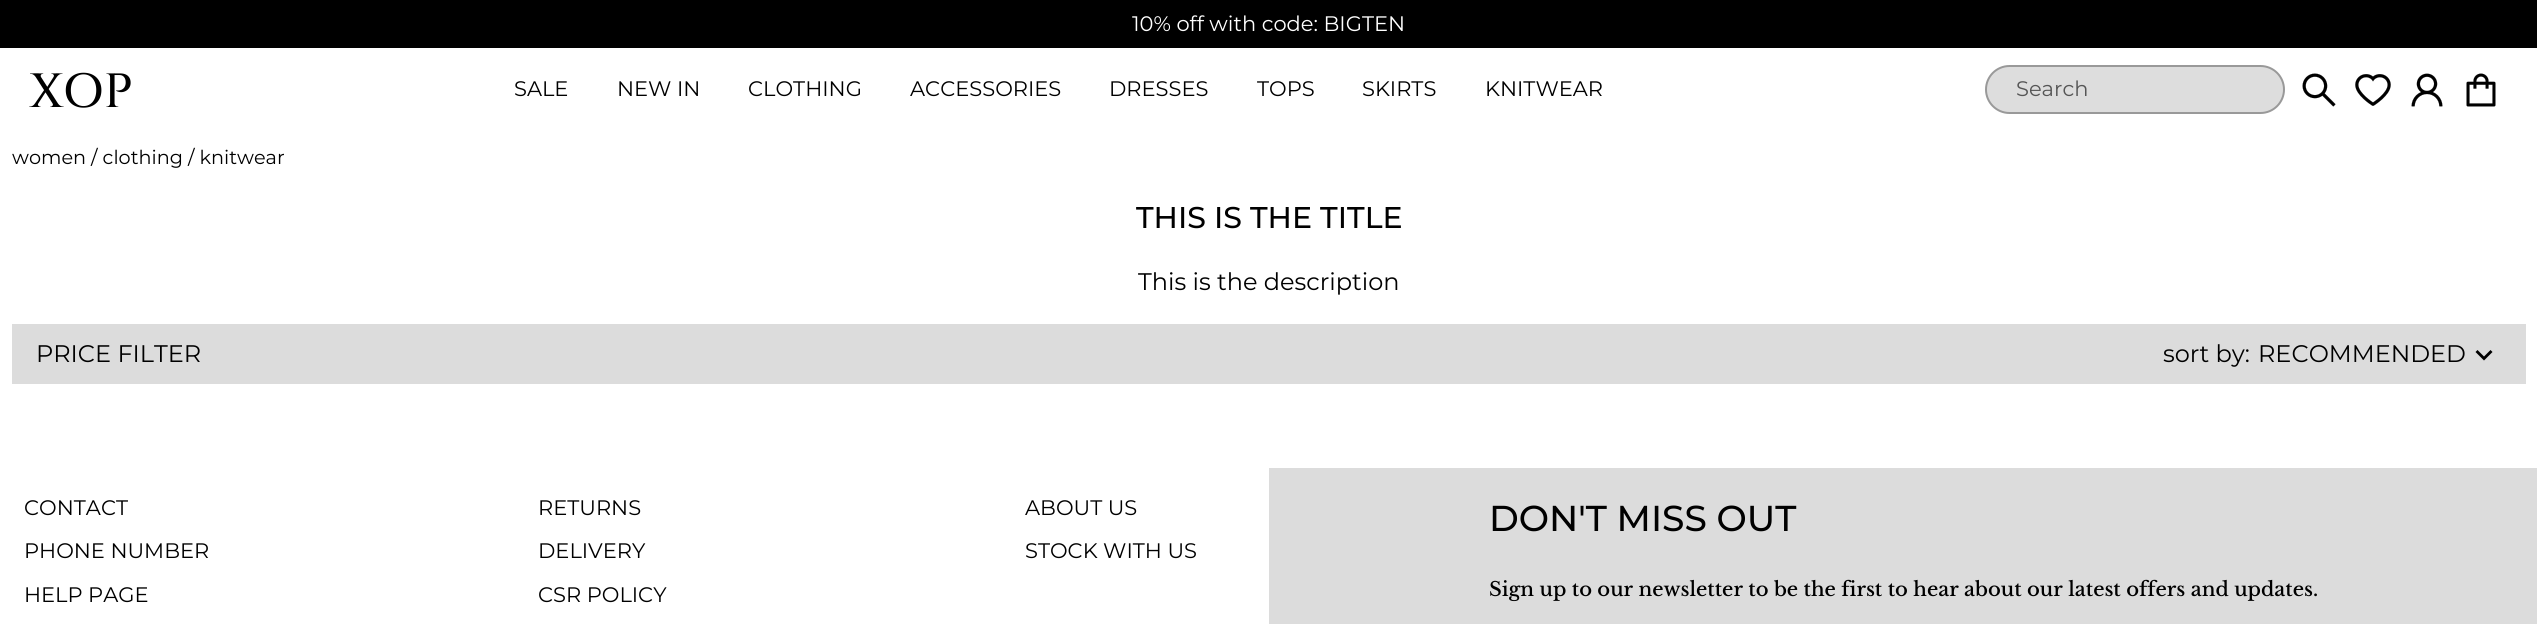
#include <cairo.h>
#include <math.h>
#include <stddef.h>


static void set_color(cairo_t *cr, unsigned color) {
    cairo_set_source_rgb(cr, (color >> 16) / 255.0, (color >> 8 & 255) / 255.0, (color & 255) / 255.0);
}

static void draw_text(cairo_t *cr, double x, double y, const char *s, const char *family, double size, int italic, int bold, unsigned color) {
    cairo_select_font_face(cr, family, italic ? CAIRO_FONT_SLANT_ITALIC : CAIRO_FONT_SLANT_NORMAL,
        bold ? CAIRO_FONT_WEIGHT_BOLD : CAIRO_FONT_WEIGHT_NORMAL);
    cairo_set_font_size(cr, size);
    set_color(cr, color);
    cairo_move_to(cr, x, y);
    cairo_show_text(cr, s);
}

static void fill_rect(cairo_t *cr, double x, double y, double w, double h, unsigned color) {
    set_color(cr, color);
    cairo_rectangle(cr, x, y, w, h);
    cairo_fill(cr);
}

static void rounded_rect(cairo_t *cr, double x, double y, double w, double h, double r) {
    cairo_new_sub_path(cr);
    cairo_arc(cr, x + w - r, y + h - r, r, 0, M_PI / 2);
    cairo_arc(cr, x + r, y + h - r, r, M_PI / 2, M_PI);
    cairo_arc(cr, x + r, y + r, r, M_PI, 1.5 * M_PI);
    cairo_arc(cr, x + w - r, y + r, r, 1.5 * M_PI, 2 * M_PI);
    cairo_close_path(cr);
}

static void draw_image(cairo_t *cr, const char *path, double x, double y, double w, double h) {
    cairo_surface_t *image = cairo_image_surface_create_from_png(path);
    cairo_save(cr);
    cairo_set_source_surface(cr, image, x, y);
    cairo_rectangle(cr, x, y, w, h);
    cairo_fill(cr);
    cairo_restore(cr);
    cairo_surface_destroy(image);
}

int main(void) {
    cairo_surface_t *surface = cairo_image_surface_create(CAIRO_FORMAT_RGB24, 2537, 624);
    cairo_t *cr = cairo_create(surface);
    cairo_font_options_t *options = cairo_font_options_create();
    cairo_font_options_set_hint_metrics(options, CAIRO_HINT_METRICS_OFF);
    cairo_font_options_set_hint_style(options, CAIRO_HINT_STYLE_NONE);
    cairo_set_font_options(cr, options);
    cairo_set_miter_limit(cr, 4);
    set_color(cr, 0xFFFFFF);
    cairo_paint(cr);
    fill_rect(cr, 0, 0, 2537, 48, 0x000000);
    draw_text(cr, 1132, 31, "10% off with code: BIGTEN", "Montserrat", 21, 0, 0, 0xFFFFFF);
    draw_text(cr, 30, 107, "XOP", "Cinzel Medium", 48, 0, 0, 0x000000);
    draw_text(cr, 514, 96, "SALE", "Montserrat", 21, 0, 0, 0x000000);
    draw_text(cr, 617, 96, "NEW IN", "Montserrat", 21, 0, 0, 0x000000);
    draw_text(cr, 748, 96, "CLOTHING", "Montserrat", 21, 0, 0, 0x000000);
    draw_text(cr, 910, 96, "ACCESSORIES", "Montserrat", 21, 0, 0, 0x000000);
    draw_text(cr, 1109, 96, "DRESSES", "Montserrat", 21, 0, 0, 0x000000);
    draw_text(cr, 1257, 96, "TOPS", "Montserrat", 21, 0, 0, 0x000000);
    draw_text(cr, 1362, 96, "SKIRTS", "Montserrat", 21, 0, 0, 0x000000);
    draw_text(cr, 1485, 96, "KNITWEAR", "Montserrat", 21, 0, 0, 0x000000);
    set_color(cr, 0xDDDDDD);
    rounded_rect(cr, 1986, 66, 298, 47, 23.5);
    cairo_fill_preserve(cr);
    set_color(cr, 0x999999);
    cairo_stroke(cr);
    draw_text(cr, 2016, 96, "Search", "Montserrat", 21, 0, 0, 0x555555);
    draw_image(cr, "assets/img1.png", 2302, 73, 34, 34);
    draw_image(cr, "assets/img2.png", 2355, 74, 36, 32);
    draw_image(cr, "assets/img3.png", 2411, 73, 32, 34);
    draw_image(cr, "assets/img4.png", 2466, 73, 30, 34);
    draw_text(cr, 12, 164, "women / clothing / knitwear", "Montserrat", 19.25, 0, 0, 0x000000);
    draw_text(cr, 1136, 228, "THIS IS THE TITLE", "Montserrat Medium", 30, 0, 0, 0x000000);
    draw_text(cr, 1138, 290, "This is the description", "Montserrat", 24, 0, 0, 0x000000);
    fill_rect(cr, 12, 324, 2514, 60, 0xDCDCDC);
    draw_text(cr, 36, 362, "PRICE FILTER", "Montserrat", 24, 0, 0, 0x000000);
    draw_text(cr, 2163, 362, "sort by:", "Montserrat", 24, 0, 0, 0x000000);
    draw_text(cr, 2258, 362, "RECOMMENDED", "Montserrat", 24, 0, 0, 0x000000);
    cairo_new_path(cr);
    cairo_move_to(cr, 2490.5, 350);
    cairo_line_to(cr, 2484, 356.5);
    cairo_line_to(cr, 2477.5, 350);
    cairo_line_to(cr, 2475.5, 352);
    cairo_line_to(cr, 2484, 360.5);
    cairo_line_to(cr, 2492.5, 352);
    cairo_close_path(cr);
    cairo_fill(cr);
    draw_text(cr, 24, 515, "CONTACT", "Montserrat", 21, 0, 0, 0x000000);
    draw_text(cr, 24, 558, "PHONE NUMBER", "Montserrat", 21, 0, 0, 0x000000);
    draw_text(cr, 24, 602, "HELP PAGE", "Montserrat", 21, 0, 0, 0x000000);
    draw_text(cr, 538, 515, "RETURNS", "Montserrat", 21, 0, 0, 0x000000);
    draw_text(cr, 538, 558, "DELIVERY", "Montserrat", 21, 0, 0, 0x000000);
    draw_text(cr, 538, 602, "CSR POLICY", "Montserrat", 21, 0, 0, 0x000000);
    draw_text(cr, 1025, 515, "ABOUT US", "Montserrat", 21, 0, 0, 0x000000);
    draw_text(cr, 1025, 558, "STOCK WITH US", "Montserrat", 21, 0, 0, 0x000000);
    fill_rect(cr, 1269, 468, 1268, 156, 0xDCDCDC);
    draw_text(cr, 1489, 531, "DON'T MISS OUT", "Montserrat Medium", 36, 0, 0, 0x000000);
    draw_text(cr, 1489, 596, "Sign up to our newsletter to be the first to hear about our latest offers and updates.", "Libre Baskerville Medium", 19.5, 0, 0, 0x000000);
    cairo_surface_write_to_png(surface, "output.png");
    cairo_font_options_destroy(options);
    cairo_destroy(cr);
    cairo_surface_destroy(surface);
    return 0;
}
